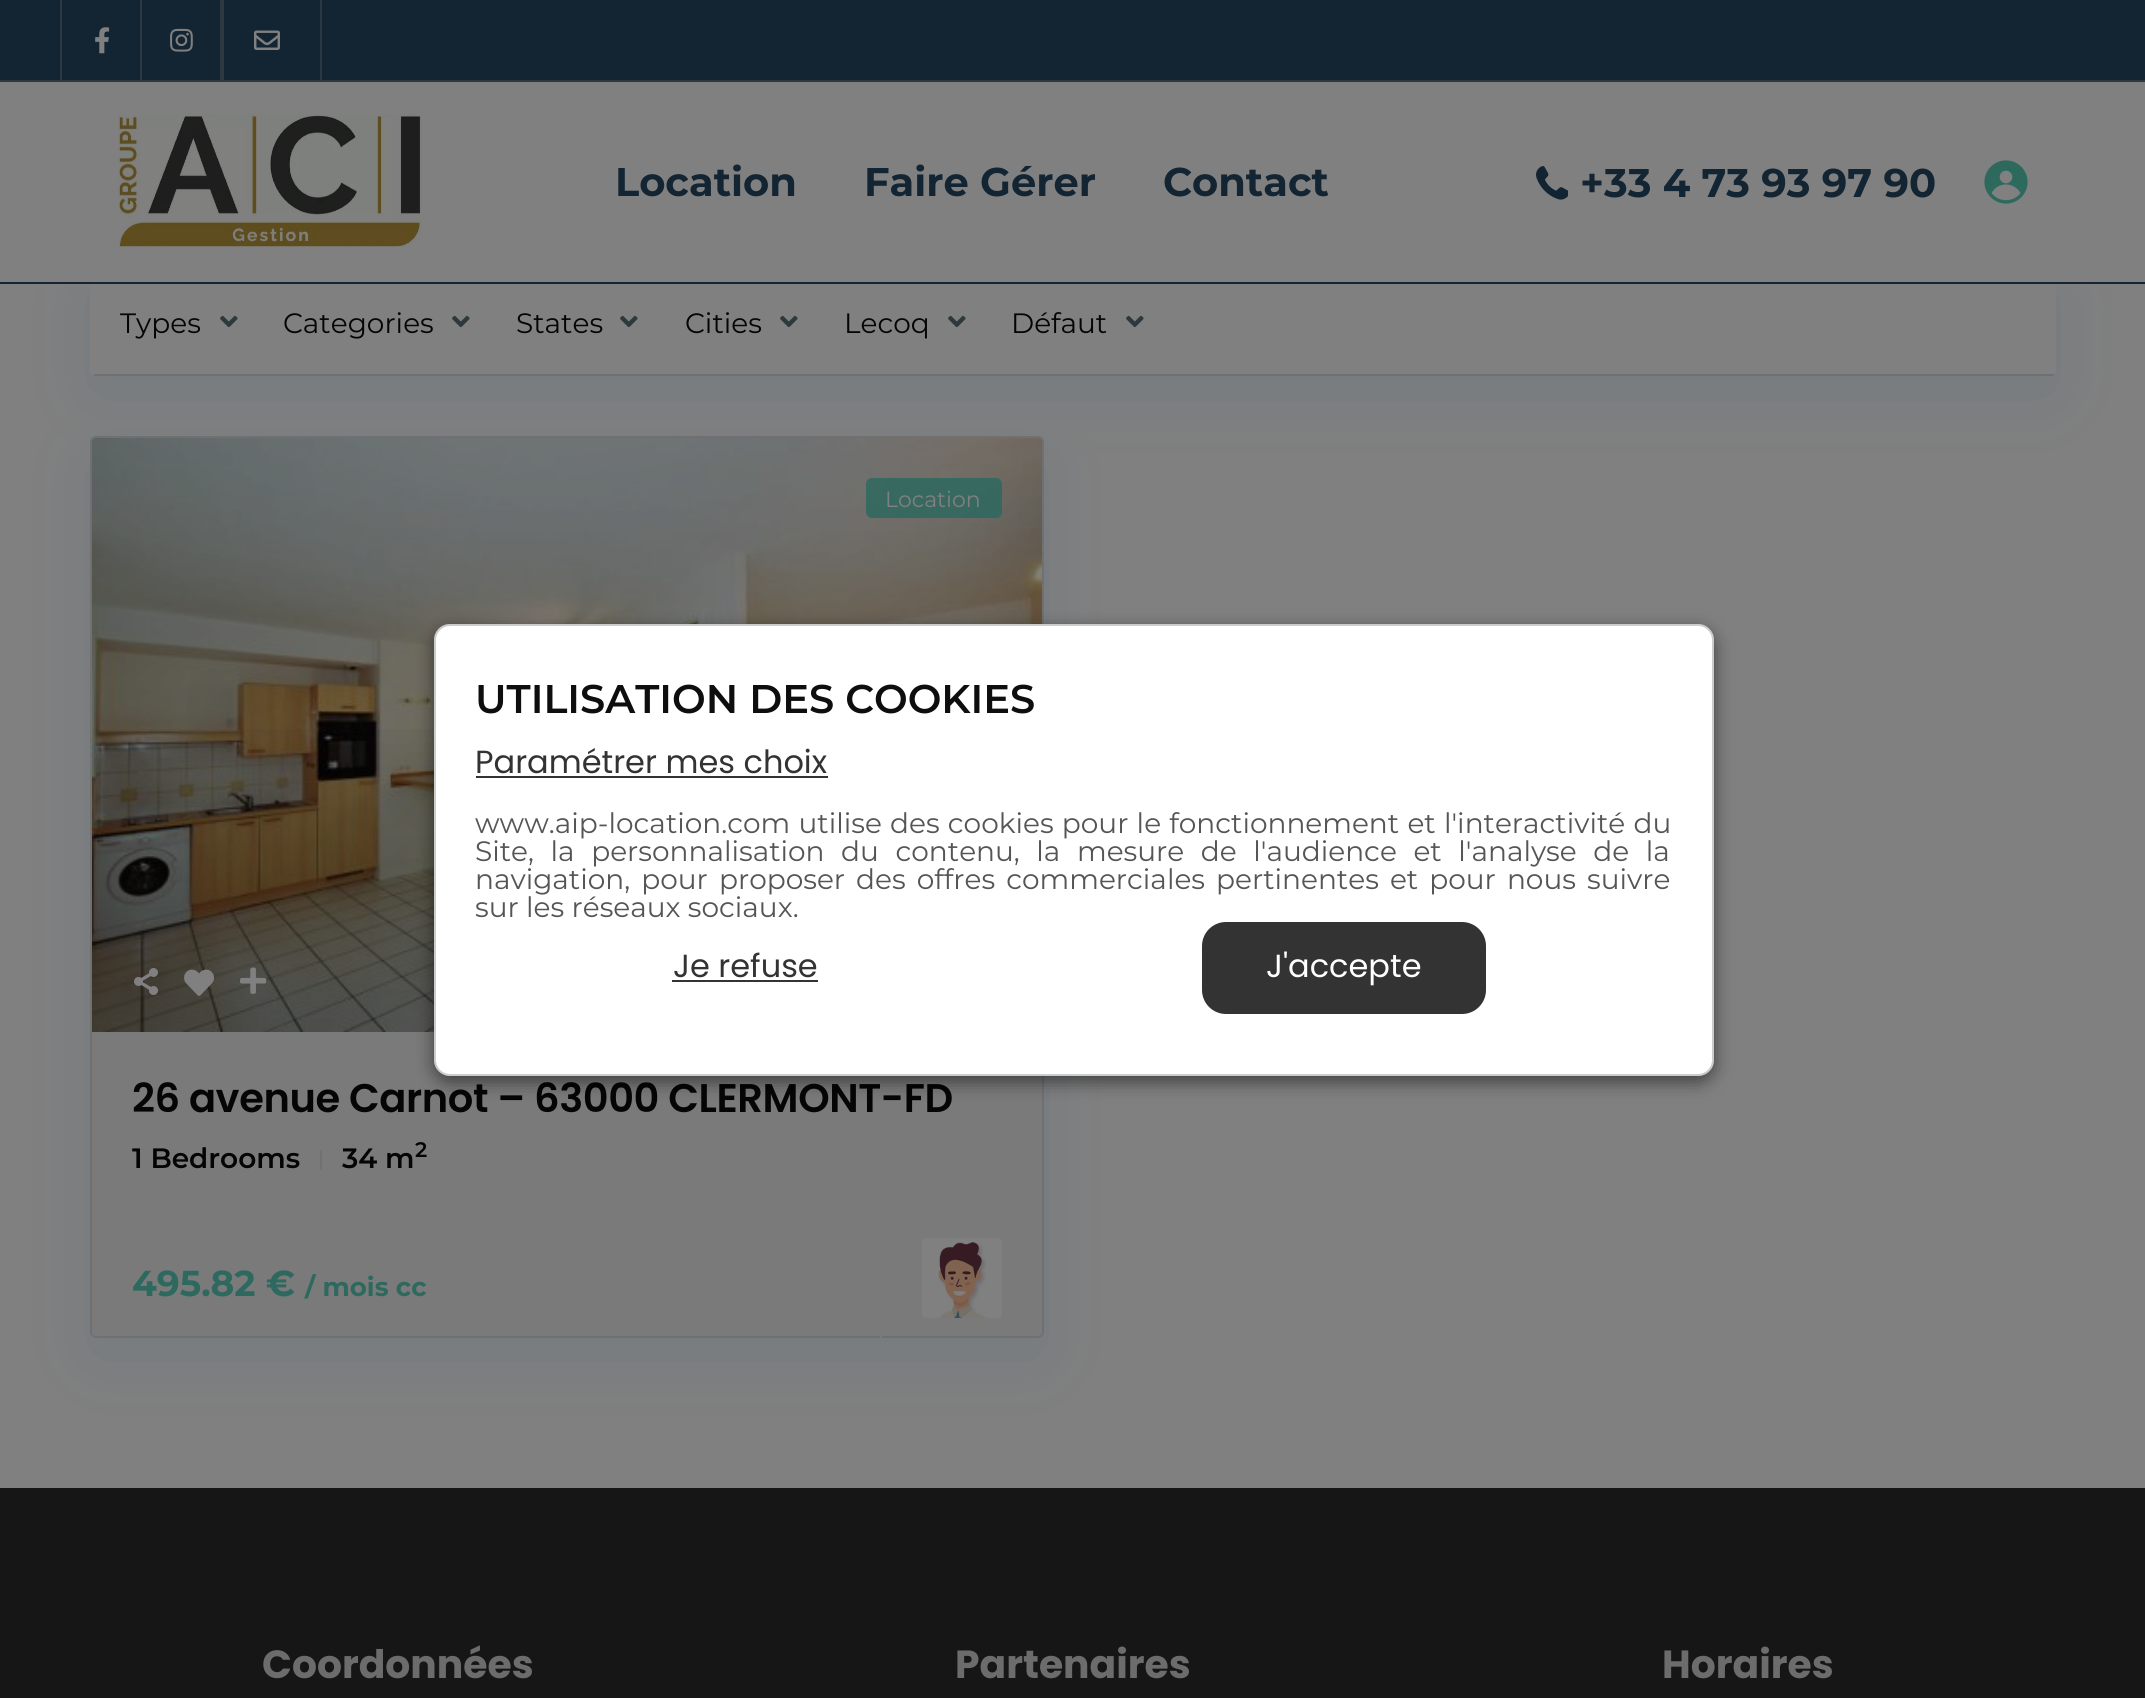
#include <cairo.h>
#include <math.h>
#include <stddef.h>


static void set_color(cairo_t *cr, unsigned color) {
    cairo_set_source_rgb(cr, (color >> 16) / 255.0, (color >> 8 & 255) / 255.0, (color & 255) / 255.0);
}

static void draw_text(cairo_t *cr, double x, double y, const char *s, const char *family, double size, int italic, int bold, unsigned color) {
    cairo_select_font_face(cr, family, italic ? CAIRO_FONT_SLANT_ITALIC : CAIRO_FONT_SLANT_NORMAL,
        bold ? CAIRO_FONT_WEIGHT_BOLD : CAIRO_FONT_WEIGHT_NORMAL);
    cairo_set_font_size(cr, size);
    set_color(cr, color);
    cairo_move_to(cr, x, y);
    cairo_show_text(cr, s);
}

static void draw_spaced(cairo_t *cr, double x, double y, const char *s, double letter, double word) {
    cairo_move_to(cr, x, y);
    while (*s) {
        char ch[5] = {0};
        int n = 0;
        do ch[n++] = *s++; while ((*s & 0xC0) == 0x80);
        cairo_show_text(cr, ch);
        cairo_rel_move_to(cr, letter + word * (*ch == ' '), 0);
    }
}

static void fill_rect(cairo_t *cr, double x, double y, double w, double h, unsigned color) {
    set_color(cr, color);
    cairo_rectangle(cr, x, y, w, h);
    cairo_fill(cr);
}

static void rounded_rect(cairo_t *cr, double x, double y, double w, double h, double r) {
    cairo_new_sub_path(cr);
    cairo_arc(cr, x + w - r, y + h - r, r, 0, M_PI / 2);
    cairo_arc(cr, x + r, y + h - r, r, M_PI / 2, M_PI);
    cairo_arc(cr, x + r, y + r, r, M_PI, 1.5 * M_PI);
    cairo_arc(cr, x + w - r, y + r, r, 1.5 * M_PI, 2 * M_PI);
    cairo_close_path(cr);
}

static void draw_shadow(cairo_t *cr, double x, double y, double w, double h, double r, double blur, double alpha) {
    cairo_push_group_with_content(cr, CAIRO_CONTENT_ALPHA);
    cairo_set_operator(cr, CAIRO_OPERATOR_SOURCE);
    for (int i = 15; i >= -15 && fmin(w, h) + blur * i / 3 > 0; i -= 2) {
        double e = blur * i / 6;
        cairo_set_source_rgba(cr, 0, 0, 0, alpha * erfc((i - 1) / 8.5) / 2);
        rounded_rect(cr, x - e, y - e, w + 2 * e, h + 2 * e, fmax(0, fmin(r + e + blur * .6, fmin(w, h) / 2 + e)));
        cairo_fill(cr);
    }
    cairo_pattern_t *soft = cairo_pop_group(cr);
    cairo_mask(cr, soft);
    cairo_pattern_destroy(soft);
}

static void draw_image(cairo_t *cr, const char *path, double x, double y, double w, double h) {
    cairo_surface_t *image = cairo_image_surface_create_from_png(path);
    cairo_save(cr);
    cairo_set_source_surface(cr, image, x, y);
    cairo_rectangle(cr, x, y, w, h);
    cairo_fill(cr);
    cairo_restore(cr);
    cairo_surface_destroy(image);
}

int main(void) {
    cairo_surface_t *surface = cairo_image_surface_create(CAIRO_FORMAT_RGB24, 2145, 1698);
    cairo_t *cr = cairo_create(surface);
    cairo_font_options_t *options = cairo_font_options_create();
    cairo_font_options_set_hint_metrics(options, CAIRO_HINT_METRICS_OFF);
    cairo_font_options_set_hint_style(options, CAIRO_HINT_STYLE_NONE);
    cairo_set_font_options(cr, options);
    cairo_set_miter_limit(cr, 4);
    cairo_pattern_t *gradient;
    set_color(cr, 0x161616);
    cairo_paint(cr);
    fill_rect(cr, 0, 284, 2145, 1204, 0x808080);
    set_color(cr, 0x044C80);
    draw_shadow(cr, 90, 284, 1966, 112, 6, 31, 0.09);
    set_color(cr, 0x808080);
    rounded_rect(cr, 90, 264, 1966, 112, 6);
    cairo_fill(cr);
    fill_rect(cr, 0, 82, 2145, 200, 0x808080);
    fill_rect(cr, 0, 282, 2145, 2, 0x132432);
    fill_rect(cr, 0, 0, 2145, 80, 0x132432);
    fill_rect(cr, 0, 80, 2145, 2, 0x2C3842);
    fill_rect(cr, 60, 0, 2, 80, 0x2C3842);
    fill_rect(cr, 140, 0, 2, 80, 0x2C3842);
    draw_image(cr, "assets/img1.png", 95, 27, 15, 27);
    fill_rect(cr, 220, 0, 4, 80, 0x2C3842);
    draw_image(cr, "assets/img2.png", 170, 28, 23, 24);
    fill_rect(cr, 320, 0, 2, 80, 0x2C3842);
    draw_image(cr, "assets/img3.png", 254, 30, 26, 20);
    draw_image(cr, "assets/img4.png", 118, 114, 304, 134);
    draw_text(cr, 615, 196, "Location", "Montserrat", 40, 0, 1, 0x132432);
    draw_text(cr, 864, 196, "Faire Gérer", "Montserrat", 40, 0, 1, 0x132432);
    draw_text(cr, 1163, 196, "Contact", "Montserrat", 40, 0, 1, 0x132432);
    draw_image(cr, "assets/img5.png", 1536, 166, 32, 34);
    draw_text(cr, 1580, 197, "+33 4 73 93 97 90", "Montserrat", 40, 0, 1, 0x132432);
    draw_image(cr, "assets/img6.png", 1984, 160, 44, 44);
    fill_rect(cr, 94, 374, 1960, 2, 0x707070);
    draw_text(cr, 120, 333, "Types", "Montserrat", 28, 0, 0, 0x050505);
    draw_image(cr, "assets/img7.png", 220, 315, 18, 13);
    draw_text(cr, 283, 333, "Categories", "Montserrat", 28, 0, 0, 0x050505);
    draw_image(cr, "assets/img7.png", 452, 315, 18, 13);
    draw_text(cr, 516, 333, "States", "Montserrat", 28, 0, 0, 0x050505);
    draw_image(cr, "assets/img7.png", 620, 315, 18, 13);
    draw_text(cr, 685, 333, "Cities", "Montserrat", 28, 0, 0, 0x050505);
    draw_image(cr, "assets/img7.png", 780, 315, 18, 13);
    draw_text(cr, 844, 333, "Lecoq", "Montserrat", 28, 0, 0, 0x050505);
    draw_image(cr, "assets/img7.png", 948, 315, 18, 13);
    draw_text(cr, 1011, 333, "Défaut", "Montserrat", 28, 0, 0, 0x050505);
    draw_image(cr, "assets/img7.png", 1126, 315, 18, 13);
    set_color(cr, 0x044C80);
    draw_shadow(cr, 90, 456, 954, 902, 6, 31, 0.09);
    set_color(cr, 0x7A7A7A);
    rounded_rect(cr, 91, 437, 952, 900, 5);
    cairo_fill_preserve(cr);
    set_color(cr, 0x707070);
    cairo_stroke(cr);
    draw_image(cr, "assets/img8.png", 92, 438, 950, 594);
    cairo_set_source_rgba(cr, 0.18, 0.412, 0.373, 0.85);
    rounded_rect(cr, 866, 478, 136, 40, 6);
    cairo_fill(cr);
    draw_text(cr, 885, 507, "Location", "Montserrat", 22, 0, 0, 0x808080);
    gradient = cairo_pattern_create_linear(567, 1032, 567, 438);
    cairo_pattern_add_color_stop_rgba(gradient, 0, 0, 0, 0, 0.19);
    cairo_pattern_add_color_stop_rgba(gradient, 0.59, 0, 0, 0, 0);
    cairo_set_source(cr, gradient);
    cairo_pattern_destroy(gradient);
    cairo_rectangle(cr, 92, 729, 342, 303);
    cairo_fill(cr);
    draw_image(cr, "assets/img9.png", 134, 968, 24, 27);
    draw_image(cr, "assets/img10.png", 184, 969, 31, 27);
    draw_image(cr, "assets/img11.png", 240, 967, 27, 27);
    cairo_select_font_face(cr, "Poppins SemiBold", CAIRO_FONT_SLANT_NORMAL, CAIRO_FONT_WEIGHT_NORMAL);
    cairo_set_font_size(cr, 40);
    set_color(cr, 0x050505);
    draw_spaced(cr, 132, 1112, "26 avenue Carnot – 63000 CLERMONT-FD", -0.4, 0);
    draw_text(cr, 132, 1168, "1 Bedrooms", "Montserrat SemiBold", 28, 0, 0, 0x050505);
    fill_rect(cr, 320, 1150, 2, 20, 0x6F7275);
    draw_text(cr, 342, 1168, "34 m", "Montserrat SemiBold", 28, 0, 0, 0x050505);
    draw_text(cr, 415, 1157, "2", "Montserrat SemiBold", 21, 0, 0, 0x050505);
    draw_text(cr, 132, 1296, "495.82 €", "Montserrat", 36, 0, 1, 0x2E695F);
    draw_text(cr, 305, 1296, "/ mois cc", "Montserrat", 26, 0, 1, 0x2E695F);
    fill_rect(cr, 880, 1336, 2, 2, 0x7C7C7C);
    draw_image(cr, "assets/img12.png", 922, 1238, 80, 80);
    draw_text(cr, 262, 1678, "Coordonnées", "Poppins", 39.25, 0, 1, 0x6C6C6C);
    draw_text(cr, 955, 1678, "Partenaires", "Poppins", 39.25, 0, 1, 0x6C6C6C);
    draw_text(cr, 1662, 1678, "Horaires", "Poppins", 39.25, 0, 1, 0x6C6C6C);
    set_color(cr, 0x000000);
    draw_shadow(cr, 434, 630, 1280, 452, 16, 9, 0.5);
    set_color(cr, 0xFFFFFF);
    rounded_rect(cr, 434, 624, 1280, 452, 16);
    cairo_fill(cr);
    rounded_rect(cr, 435, 625, 1278, 450, 15);
    cairo_set_source_rgba(cr, 0, 0, 0, 0.2);
    cairo_stroke(cr);
    draw_text(cr, 475, 713, "UTILISATION DES COOKIES", "Montserrat SemiBold", 40, 0, 0, 0x0E0E0E);
    draw_text(cr, 475, 773, "Paramétrer mes choix", "Poppins", 32, 0, 0, 0x333333);
    fill_rect(cr, 476, 776, 352, 2, 0x333333);
    cairo_select_font_face(cr, "Montserrat", CAIRO_FONT_SLANT_NORMAL, CAIRO_FONT_WEIGHT_NORMAL);
    cairo_set_font_size(cr, 28);
    set_color(cr, 0x555555);
    draw_spaced(cr, 475, 833, "www.aip-location.com utilise des cookies pour le fonctionnement et l'interactivité du", 0, 0.9);
    draw_spaced(cr, 475, 861, "Site, la personnalisation du contenu, la mesure de l'audience et l'analyse de la", 0, 9.25);
    draw_spaced(cr, 475, 889, "navigation, pour proposer des offres commerciales pertinentes et pour nous suivre", 0, 3.75);
    draw_text(cr, 475, 917, "sur les réseaux sociaux.", "Montserrat", 28, 0, 0, 0x555555);
    draw_text(cr, 673, 977, "Je refuse", "Poppins", 32, 0, 0, 0x333333);
    fill_rect(cr, 672, 980, 146, 2, 0x333333);
    rounded_rect(cr, 1202, 922, 284, 92, 24);
    cairo_fill(cr);
    draw_text(cr, 1266, 977, "J'accepte", "Poppins", 32, 0, 0, 0xFFFFFF);
    cairo_surface_write_to_png(surface, "output.png");
    cairo_font_options_destroy(options);
    cairo_destroy(cr);
    cairo_surface_destroy(surface);
    return 0;
}
